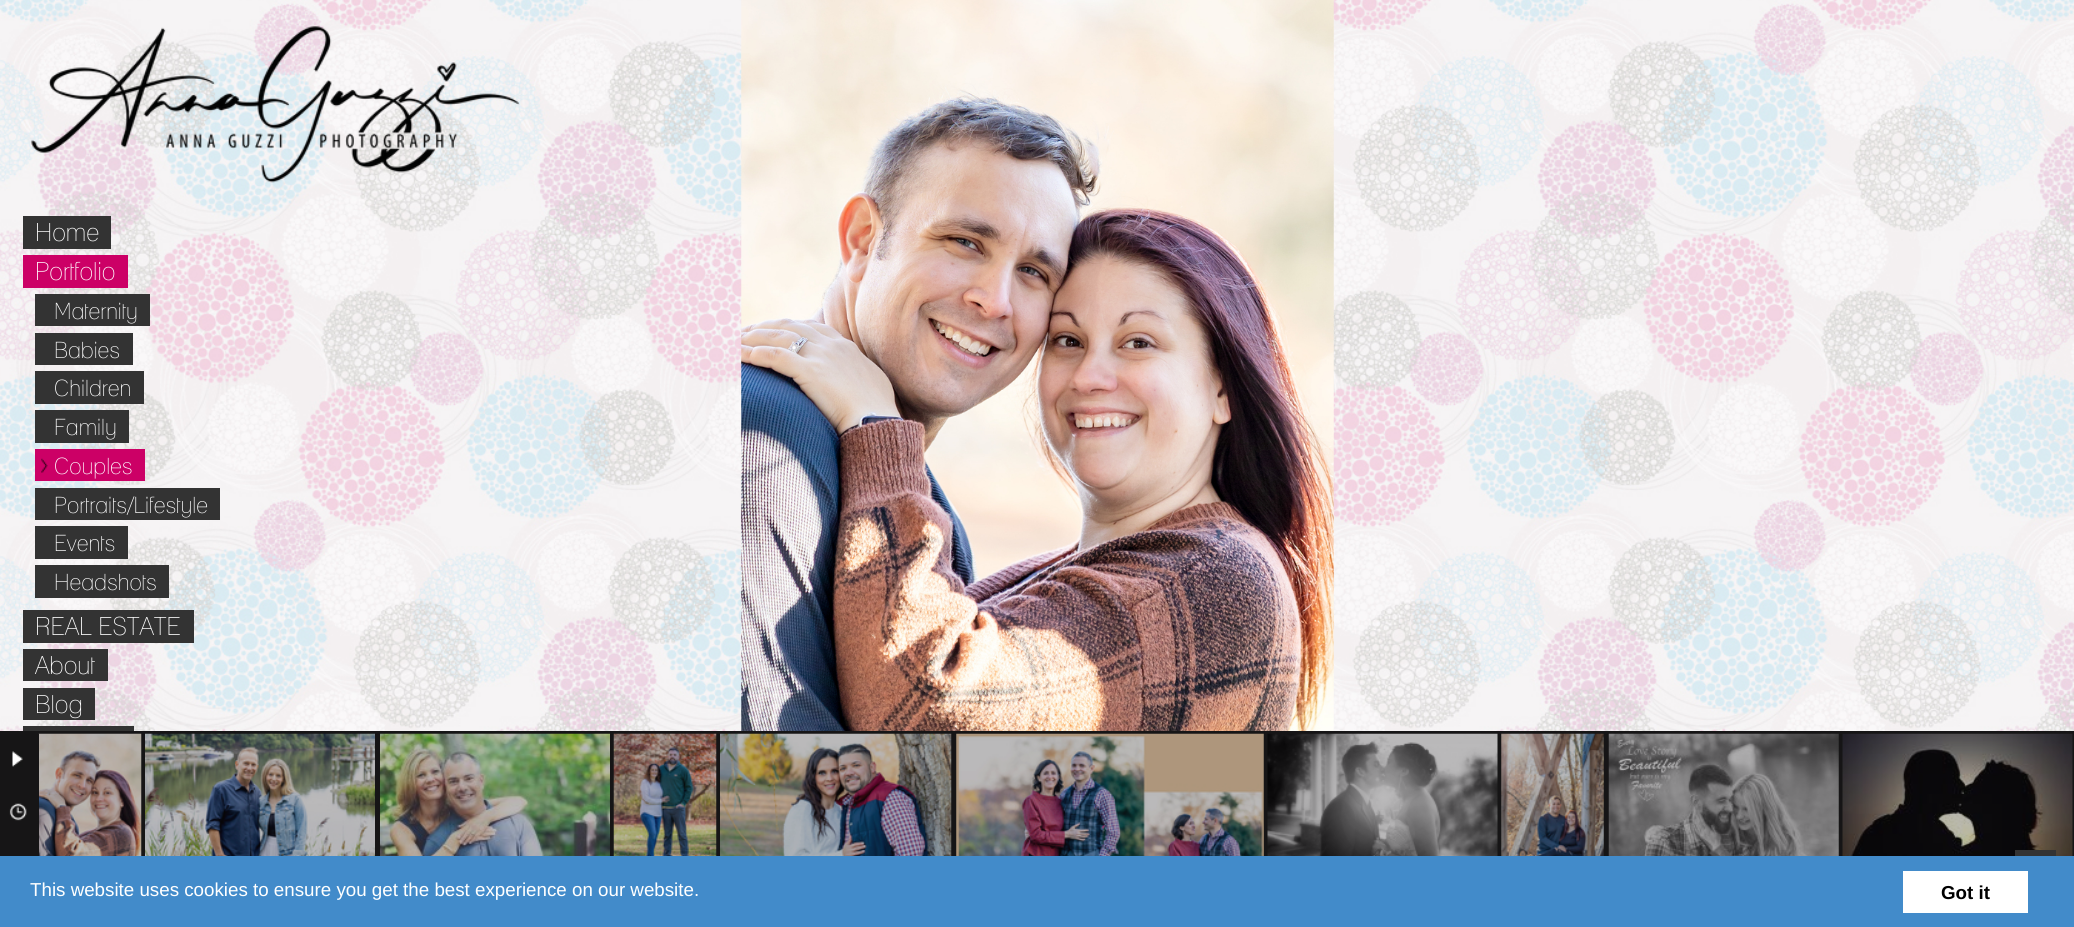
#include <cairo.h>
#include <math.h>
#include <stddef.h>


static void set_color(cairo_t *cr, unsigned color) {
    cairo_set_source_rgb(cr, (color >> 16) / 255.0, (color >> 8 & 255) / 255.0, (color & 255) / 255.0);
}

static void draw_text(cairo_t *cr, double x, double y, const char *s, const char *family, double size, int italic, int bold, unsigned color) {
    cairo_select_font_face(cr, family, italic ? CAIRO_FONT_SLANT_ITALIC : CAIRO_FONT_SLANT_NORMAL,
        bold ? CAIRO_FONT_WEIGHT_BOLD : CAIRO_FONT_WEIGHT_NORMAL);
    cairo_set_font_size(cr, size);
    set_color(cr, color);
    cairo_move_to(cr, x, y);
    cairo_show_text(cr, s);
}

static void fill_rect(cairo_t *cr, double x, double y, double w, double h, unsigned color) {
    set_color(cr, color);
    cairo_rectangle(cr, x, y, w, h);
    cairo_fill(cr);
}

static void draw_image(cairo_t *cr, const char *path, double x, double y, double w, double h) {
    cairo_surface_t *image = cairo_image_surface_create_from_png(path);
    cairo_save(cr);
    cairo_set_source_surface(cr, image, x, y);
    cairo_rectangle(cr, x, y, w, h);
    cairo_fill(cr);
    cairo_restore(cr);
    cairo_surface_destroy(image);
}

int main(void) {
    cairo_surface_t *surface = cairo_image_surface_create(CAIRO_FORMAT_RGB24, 2074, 927);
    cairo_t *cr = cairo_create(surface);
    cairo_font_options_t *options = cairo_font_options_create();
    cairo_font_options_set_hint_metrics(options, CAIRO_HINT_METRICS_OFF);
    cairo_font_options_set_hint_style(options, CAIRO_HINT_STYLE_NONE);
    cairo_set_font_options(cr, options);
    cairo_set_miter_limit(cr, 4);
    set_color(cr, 0xFFFFFF);
    cairo_paint(cr);
    draw_image(cr, "assets/img1.png", 0, 0, 2074, 731);
    draw_image(cr, "assets/img2.png", 741, 0, 593, 731);
    fill_rect(cr, 0, 731, 2074, 125, 0x161516);
    draw_image(cr, "assets/img5.png", 38, 733, 104, 123);
    fill_rect(cr, 38, 734, 1, 122, 0x161516);
    draw_image(cr, "assets/img3.png", 12, 751, 11, 16);
    draw_image(cr, "assets/img4.png", 9, 803, 18, 18);
    draw_image(cr, "assets/img6.png", 145, 733, 230, 123);
    draw_image(cr, "assets/img7.png", 380, 733, 230, 123);
    draw_image(cr, "assets/img8.png", 613, 733, 104, 123);
    draw_image(cr, "assets/img9.png", 720, 733, 232, 123);
    draw_image(cr, "assets/img10.png", 956, 733, 308, 123);
    draw_image(cr, "assets/img11.png", 1267, 733, 231, 123);
    draw_image(cr, "assets/img12.png", 1501, 733, 103, 123);
    draw_image(cr, "assets/img13.png", 1608, 733, 231, 123);
    draw_image(cr, "assets/img14.png", 1842, 733, 231, 123);
    draw_image(cr, "assets/img15.png", 31, 26, 489, 157);
    fill_rect(cr, 23, 216, 88, 33, 0x333333);
    draw_text(cr, 35, 241, "Home", "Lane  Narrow", 25, 0, 0, 0xFFFFFF);
    fill_rect(cr, 23, 255, 105, 33, 0xCC0066);
    draw_text(cr, 35, 280, "Portfolio", "Lane  Narrow", 25, 0, 0, 0xFFFFFF);
    fill_rect(cr, 35, 294, 115, 32, 0x333333);
    draw_text(cr, 54, 319, "Maternity", "Lane  Narrow", 22.5, 0, 0, 0xFFFFFF);
    fill_rect(cr, 35, 333, 98, 32, 0x333333);
    draw_text(cr, 54, 358, "Babies", "Lane  Narrow", 22.5, 0, 0, 0xFFFFFF);
    fill_rect(cr, 35, 371, 109, 33, 0x333333);
    draw_text(cr, 54, 396, "Children", "Lane  Narrow", 22.5, 0, 0, 0xFFFFFF);
    fill_rect(cr, 35, 410, 94, 33, 0x333333);
    draw_text(cr, 54, 435, "Family", "Lane  Narrow", 22.5, 0, 0, 0xFFFFFF);
    fill_rect(cr, 35, 449, 110, 32, 0xCC0066);
    draw_image(cr, "assets/img16.png", 41, 458, 7, 15);
    draw_text(cr, 54, 474, "Couples", "Lane  Narrow", 22.5, 0, 0, 0xFFFFFF);
    fill_rect(cr, 35, 488, 185, 32, 0x333333);
    draw_text(cr, 54, 513, "Portraits/Lifestyle", "Lane  Narrow", 22.5, 0, 0, 0xFFFFFF);
    fill_rect(cr, 35, 526, 93, 33, 0x333333);
    draw_text(cr, 54, 551, "Events", "Lane  Narrow", 22.5, 0, 0, 0xFFFFFF);
    fill_rect(cr, 35, 565, 134, 33, 0x333333);
    draw_text(cr, 54, 590, "Headshots", "Lane  Narrow", 22.5, 0, 0, 0xFFFFFF);
    fill_rect(cr, 23, 610, 171, 33, 0x333333);
    draw_text(cr, 35, 635, "REAL ESTATE", "Lane  Narrow", 25, 0, 0, 0xFFFFFF);
    fill_rect(cr, 23, 649, 85, 32, 0x333333);
    draw_text(cr, 35, 674, "About", "Lane  Narrow", 25, 0, 0, 0xFFFFFF);
    fill_rect(cr, 23, 688, 72, 32, 0x333333);
    draw_text(cr, 35, 713, "Blog", "Lane  Narrow", 25, 0, 0, 0xFFFFFF);
    fill_rect(cr, 23, 726, 111, 5, 0x333333);
    fill_rect(cr, 2015, 850, 41, 6, 0x333333);
    fill_rect(cr, 0, 856, 2074, 71, 0x428BCA);
    draw_text(cr, 30, 896, "This website uses cookies to ensure you get the best experience on our website.", "Liberation Sans", 18.75, 0, 0, 0xFFFFFF);
    fill_rect(cr, 1903, 871, 125, 42, 0xFFFFFF);
    draw_text(cr, 1941, 899, "Got it", "Liberation Sans", 18.75, 0, 1, 0x000000);
    cairo_surface_write_to_png(surface, "output.png");
    cairo_font_options_destroy(options);
    cairo_destroy(cr);
    cairo_surface_destroy(surface);
    return 0;
}
